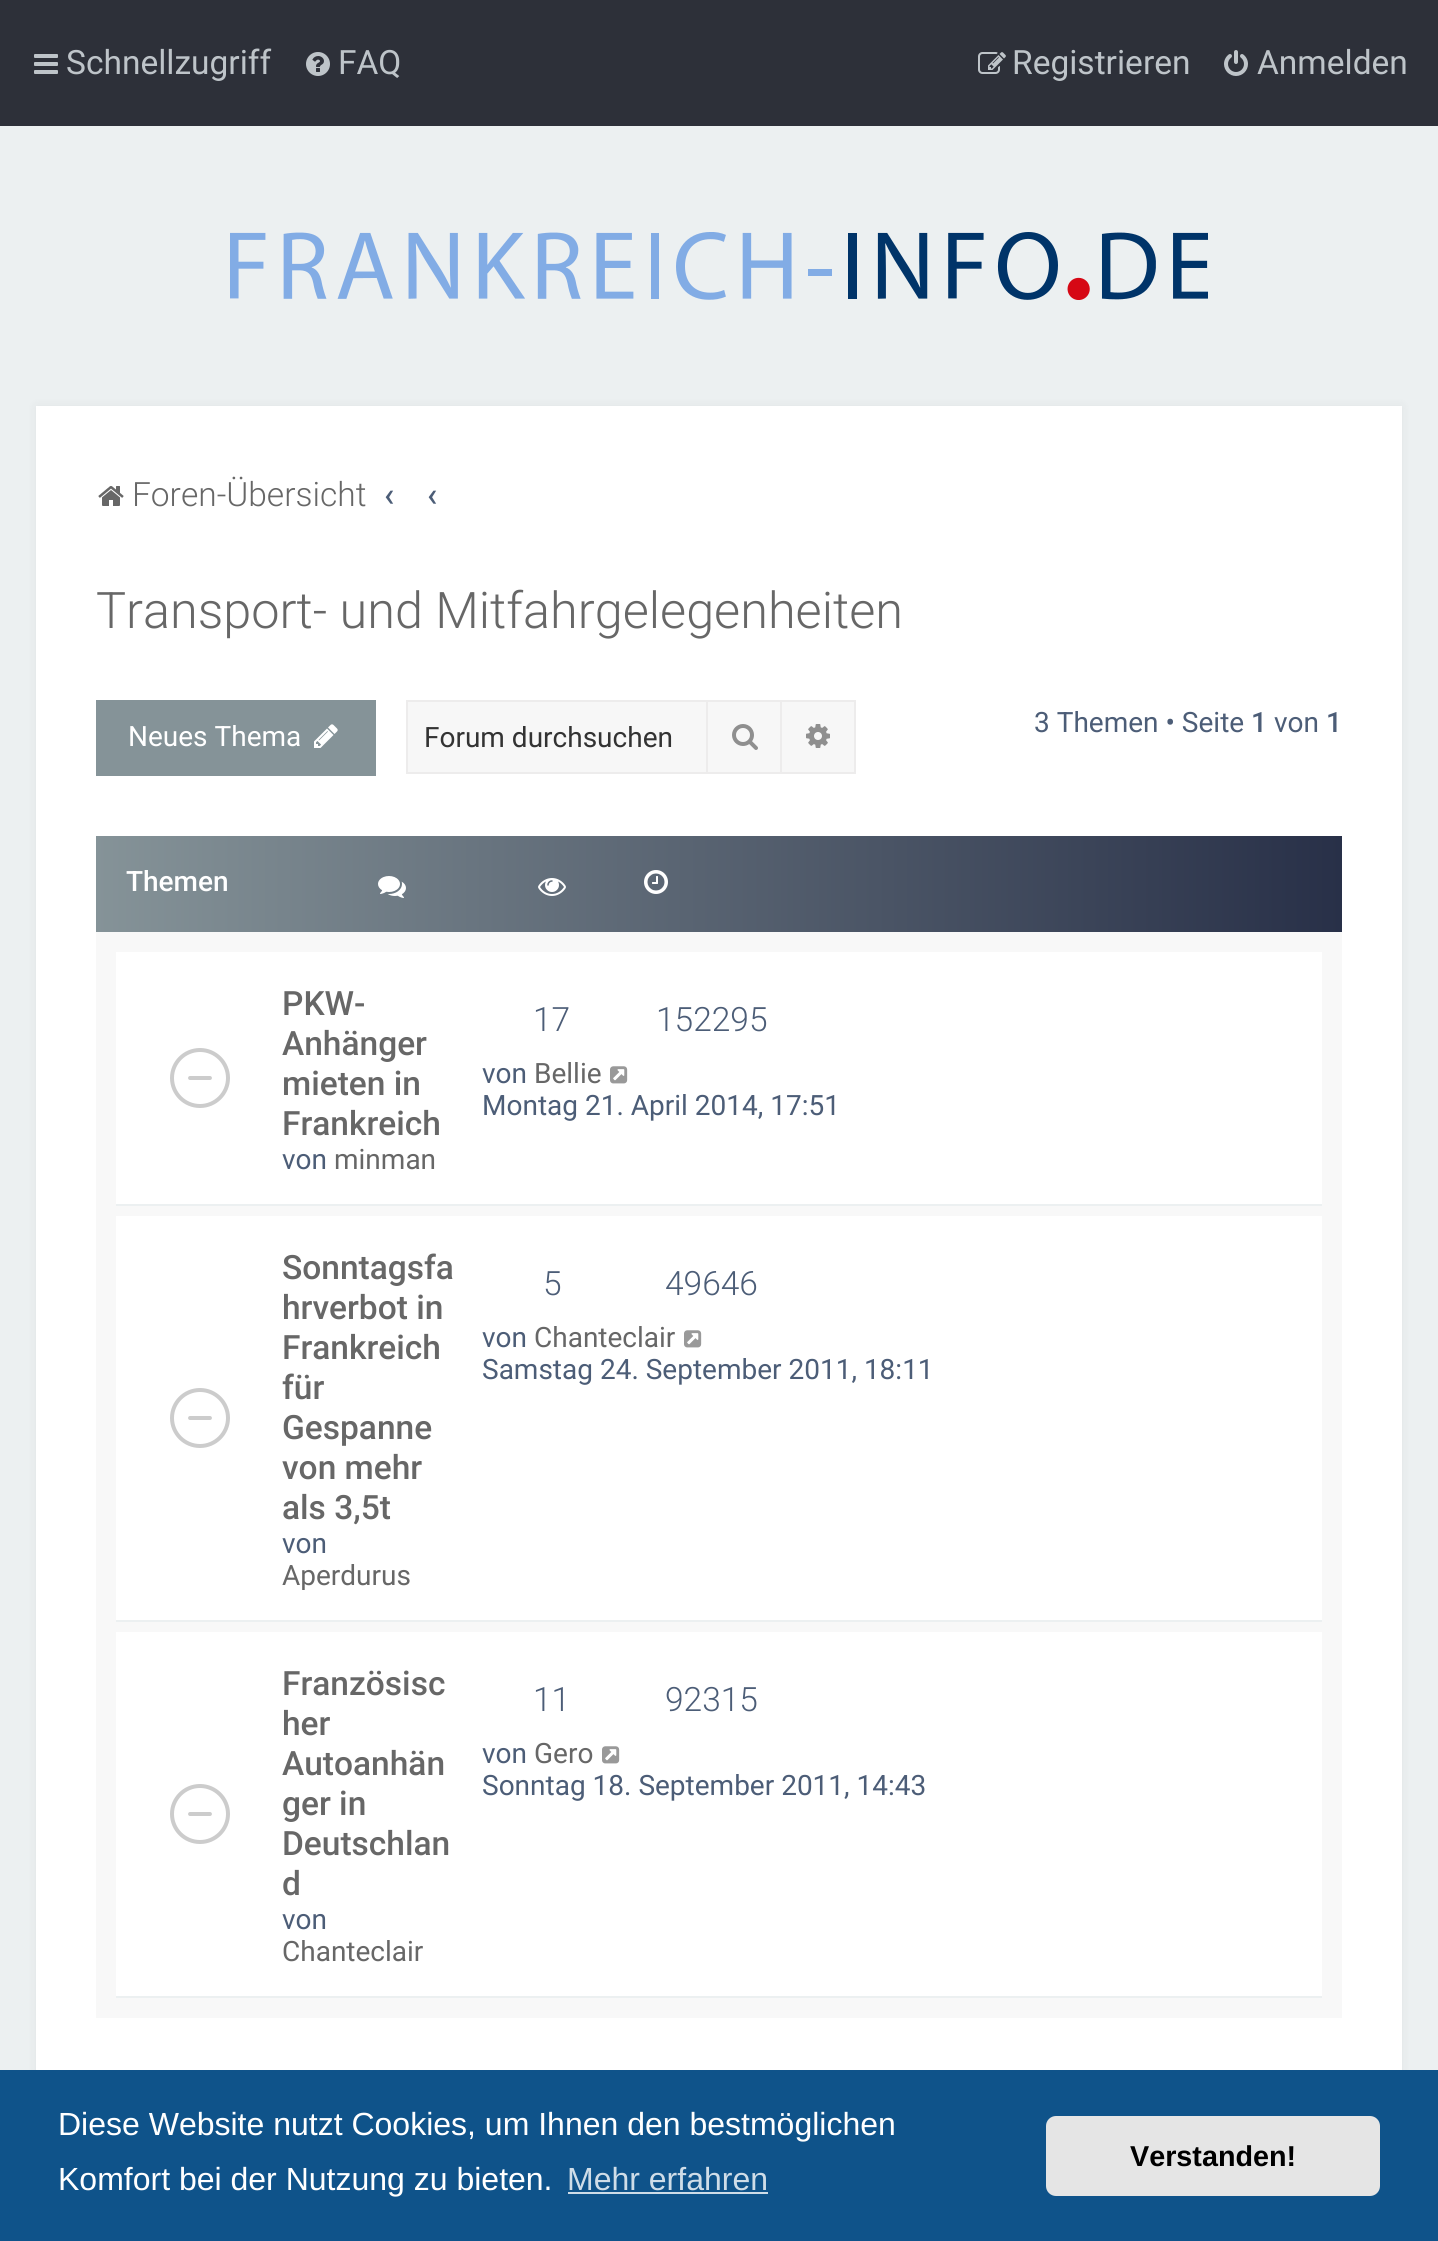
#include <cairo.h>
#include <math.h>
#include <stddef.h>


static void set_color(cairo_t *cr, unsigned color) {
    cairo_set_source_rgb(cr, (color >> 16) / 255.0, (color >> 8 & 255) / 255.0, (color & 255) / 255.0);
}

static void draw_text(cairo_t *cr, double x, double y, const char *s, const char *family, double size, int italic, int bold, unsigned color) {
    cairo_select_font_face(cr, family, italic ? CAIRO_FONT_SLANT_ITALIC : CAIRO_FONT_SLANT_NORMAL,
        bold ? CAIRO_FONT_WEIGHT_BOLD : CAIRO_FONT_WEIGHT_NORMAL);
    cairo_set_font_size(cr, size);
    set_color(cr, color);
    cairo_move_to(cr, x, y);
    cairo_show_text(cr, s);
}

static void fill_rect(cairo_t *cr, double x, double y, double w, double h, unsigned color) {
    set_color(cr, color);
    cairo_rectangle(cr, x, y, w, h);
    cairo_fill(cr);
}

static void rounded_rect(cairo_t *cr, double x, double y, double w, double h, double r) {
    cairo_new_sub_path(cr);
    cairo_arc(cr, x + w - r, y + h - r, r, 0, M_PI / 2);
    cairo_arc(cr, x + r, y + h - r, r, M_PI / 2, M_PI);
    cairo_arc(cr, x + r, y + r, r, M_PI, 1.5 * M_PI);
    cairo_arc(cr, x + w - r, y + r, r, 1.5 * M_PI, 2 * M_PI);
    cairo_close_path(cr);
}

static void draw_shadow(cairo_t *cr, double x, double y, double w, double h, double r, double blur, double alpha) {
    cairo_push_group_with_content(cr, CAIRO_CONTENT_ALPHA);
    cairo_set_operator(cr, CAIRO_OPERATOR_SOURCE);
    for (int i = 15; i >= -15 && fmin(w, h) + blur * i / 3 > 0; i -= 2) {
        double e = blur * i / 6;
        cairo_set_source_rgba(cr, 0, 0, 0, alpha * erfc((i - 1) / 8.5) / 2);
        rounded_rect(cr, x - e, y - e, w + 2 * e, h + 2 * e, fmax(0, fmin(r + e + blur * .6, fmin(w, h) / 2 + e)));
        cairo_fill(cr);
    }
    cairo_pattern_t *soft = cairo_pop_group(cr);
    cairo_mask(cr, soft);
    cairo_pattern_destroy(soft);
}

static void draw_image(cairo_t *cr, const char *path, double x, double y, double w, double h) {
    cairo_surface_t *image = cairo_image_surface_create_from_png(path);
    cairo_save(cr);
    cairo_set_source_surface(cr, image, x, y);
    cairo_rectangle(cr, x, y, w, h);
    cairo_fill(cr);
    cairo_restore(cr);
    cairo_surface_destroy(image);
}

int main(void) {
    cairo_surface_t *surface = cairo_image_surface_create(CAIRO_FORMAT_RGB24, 1438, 2241);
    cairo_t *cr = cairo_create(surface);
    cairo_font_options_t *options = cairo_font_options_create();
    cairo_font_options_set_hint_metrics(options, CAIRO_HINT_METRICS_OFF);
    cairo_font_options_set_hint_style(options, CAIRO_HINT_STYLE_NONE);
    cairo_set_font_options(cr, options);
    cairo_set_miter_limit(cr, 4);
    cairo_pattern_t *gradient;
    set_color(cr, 0xECF0F1);
    cairo_paint(cr);
    fill_rect(cr, 0, 0, 1438, 126, 0x2D3039);
    draw_image(cr, "assets/img1.png", 34, 54, 24, 20);
    draw_text(cr, 66, 74, "Schnellzugriff", "Roboto", 33.5, 0, 0, 0xBEC4C9);
    draw_image(cr, "assets/img2.png", 306, 52, 24, 24);
    draw_text(cr, 338, 74, "FAQ", "Roboto", 33.5, 0, 0, 0xBEC4C9);
    draw_image(cr, "assets/img3.png", 978, 52, 28, 22);
    draw_text(cr, 1012, 74, "Registrieren", "Roboto", 33.5, 0, 0, 0xBEC4C9);
    draw_image(cr, "assets/img4.png", 1224, 50, 24, 26);
    draw_text(cr, 1257, 74, "Anmelden", "Roboto", 33.5, 0, 0, 0xBEC4C9);
    draw_image(cr, "assets/img5.png", 230, 232, 978, 68);
    set_color(cr, 0x000000);
    draw_shadow(cr, 36, 406, 1366, 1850, 0, 5, 0.05);
    fill_rect(cr, 36, 406, 1366, 1664, 0xFFFFFF);
    draw_image(cr, "assets/img6.png", 98, 486, 26, 20);
    draw_text(cr, 132, 506, "Foren-Übersicht", "Roboto Light", 33.5, 0, 0, 0x676767);
    draw_text(cr, 384, 506, "‹", "Roboto Medium", 33.5, 0, 0, 0x4C5D77);
    draw_text(cr, 427, 506, "‹", "Roboto Medium", 33.5, 0, 0, 0x4C5D77);
    draw_text(cr, 96, 628, "Transport- und Mitfahrgelegenheiten", "Roboto Light", 50.4, 0, 0, 0x676767);
    draw_text(cr, 1034, 732, "3 Themen • Seite", "Roboto", 28, 0, 0, 0x4C5D77);
    draw_text(cr, 1251, 732, "1", "Roboto Medium", 28, 0, 0, 0x4C5D77);
    draw_text(cr, 1274, 732, "von", "Roboto", 28, 0, 0, 0x4C5D77);
    draw_text(cr, 1326, 732, "1", "Roboto Medium", 28, 0, 0, 0x4C5D77);
    fill_rect(cr, 96, 700, 280, 76, 0x859398);
    draw_text(cr, 128, 746, "Neues Thema", "Roboto", 28, 0, 0, 0xFFFFFF);
    draw_image(cr, "assets/img7.png", 314, 724, 24, 24);
    fill_rect(cr, 408, 702, 298, 70, 0xF7F7F7);
    fill_rect(cr, 406, 700, 300, 2, 0xEDECEC);
    fill_rect(cr, 406, 772, 300, 2, 0xEDECEC);
    fill_rect(cr, 406, 700, 2, 74, 0xEDECEC);
    draw_text(cr, 424, 747, "Forum durchsuchen", "Roboto", 28, 0, 0, 0x333333);
    set_color(cr, 0xF7F7F7);
    cairo_rectangle(cr, 707, 701, 74, 72);
    cairo_fill_preserve(cr);
    set_color(cr, 0xEDECEC);
    cairo_stroke(cr);
    draw_image(cr, "assets/img8.png", 732, 724, 26, 26);
    fill_rect(cr, 782, 702, 72, 70, 0xF7F7F7);
    fill_rect(cr, 782, 700, 74, 2, 0xEDECEC);
    fill_rect(cr, 854, 700, 2, 74, 0xEDECEC);
    fill_rect(cr, 782, 772, 74, 2, 0xEDECEC);
    draw_image(cr, "assets/img9.png", 806, 724, 24, 24);
    fill_rect(cr, 96, 932, 1246, 1086, 0xF8F8F8);
    gradient = cairo_pattern_create_linear(96, 884, 1342, 884);
    cairo_pattern_add_color_stop_rgba(gradient, 0, 0.522, 0.576, 0.596, 1);
    cairo_pattern_add_color_stop_rgba(gradient, 1, 0.157, 0.188, 0.282, 1);
    cairo_set_source(cr, gradient);
    cairo_pattern_destroy(gradient);
    cairo_rectangle(cr, 96, 836, 1246, 96);
    cairo_fill(cr);
    draw_text(cr, 126, 891, "Themen", "Roboto Medium", 28, 0, 0, 0xFFFFFF);
    draw_image(cr, "assets/img10.png", 378, 876, 28, 22);
    draw_image(cr, "assets/img11.png", 538, 878, 28, 18);
    draw_image(cr, "assets/img12.png", 644, 870, 24, 24);
    fill_rect(cr, 116, 952, 1206, 252, 0xFFFFFF);
    fill_rect(cr, 116, 1204, 1206, 2, 0xECF0F1);
    draw_image(cr, "assets/img13.png", 170, 1048, 60, 60);
    draw_text(cr, 282, 1015, "PKW-", "Roboto Medium", 33.5, 0, 0, 0x676767);
    draw_text(cr, 282, 1055, "Anhänger", "Roboto Medium", 33.5, 0, 0, 0x676767);
    draw_text(cr, 282, 1095, "mieten in", "Roboto Medium", 33.5, 0, 0, 0x676767);
    draw_text(cr, 282, 1135, "Frankreich", "Roboto Medium", 33.5, 0, 0, 0x676767);
    draw_text(cr, 282, 1169, "von", "Roboto", 28, 0, 0, 0x4C5D77);
    draw_text(cr, 334, 1169, "minman", "Roboto", 28, 0, 0, 0x676767);
    draw_text(cr, 533, 1031, "17", "Roboto Light", 33.5, 0, 0, 0x4C5D77);
    draw_text(cr, 656, 1031, "152295", "Roboto Light", 33.5, 0, 0, 0x4C5D77);
    draw_text(cr, 482, 1083, "von", "Roboto", 28, 0, 0, 0x4C5D77);
    draw_text(cr, 534, 1083, "Bellie", "Roboto", 28, 0, 0, 0x676767);
    draw_image(cr, "assets/img14.png", 610, 1066, 18, 18);
    draw_text(cr, 482, 1115, "Montag 21. April 2014, 17:51", "Roboto", 28, 0, 0, 0x4C5D77);
    fill_rect(cr, 116, 1216, 1206, 404, 0xFFFFFF);
    fill_rect(cr, 116, 1620, 1206, 2, 0xECF0F1);
    draw_image(cr, "assets/img13.png", 170, 1388, 60, 60);
    draw_text(cr, 282, 1279, "Sonntagsfa", "Roboto Medium", 33.5, 0, 0, 0x676767);
    draw_text(cr, 282, 1319, "hrverbot in", "Roboto Medium", 33.5, 0, 0, 0x676767);
    draw_text(cr, 282, 1359, "Frankreich", "Roboto Medium", 33.5, 0, 0, 0x676767);
    draw_text(cr, 282, 1399, "für", "Roboto Medium", 33.5, 0, 0, 0x676767);
    draw_text(cr, 282, 1439, "Gespanne", "Roboto Medium", 33.5, 0, 0, 0x676767);
    draw_text(cr, 282, 1479, "von mehr", "Roboto Medium", 33.5, 0, 0, 0x676767);
    draw_text(cr, 282, 1519, "als 3,5t", "Roboto Medium", 33.5, 0, 0, 0x676767);
    draw_text(cr, 282, 1553, "von", "Roboto", 28, 0, 0, 0x4C5D77);
    cairo_save(cr);
    cairo_rectangle(cr, 146, 1246, 1146, 344);
    cairo_clip(cr);
    draw_text(cr, 282, 1585, "Aperdurus", "Roboto", 28, 0, 0, 0x676767);
    cairo_restore(cr);
    draw_text(cr, 543, 1295, "5", "Roboto Light", 33.5, 0, 0, 0x4C5D77);
    draw_text(cr, 665, 1295, "49646", "Roboto Light", 33.5, 0, 0, 0x4C5D77);
    draw_text(cr, 482, 1347, "von", "Roboto", 28, 0, 0, 0x4C5D77);
    draw_text(cr, 534, 1347, "Chanteclair", "Roboto", 28, 0, 0, 0x676767);
    draw_image(cr, "assets/img14.png", 684, 1330, 18, 18);
    draw_text(cr, 482, 1379, "Samstag 24. September 2011, 18:11", "Roboto", 28, 0, 0, 0x4C5D77);
    fill_rect(cr, 116, 1632, 1206, 364, 0xFFFFFF);
    fill_rect(cr, 116, 1996, 1206, 2, 0xECF0F1);
    draw_image(cr, "assets/img13.png", 170, 1784, 60, 60);
    draw_text(cr, 282, 1695, "Französisc", "Roboto Medium", 33.5, 0, 0, 0x676767);
    draw_text(cr, 282, 1735, "her", "Roboto Medium", 33.5, 0, 0, 0x676767);
    draw_text(cr, 282, 1775, "Autoanhän", "Roboto Medium", 33.5, 0, 0, 0x676767);
    draw_text(cr, 282, 1815, "ger in", "Roboto Medium", 33.5, 0, 0, 0x676767);
    draw_text(cr, 282, 1855, "Deutschlan", "Roboto Medium", 33.5, 0, 0, 0x676767);
    draw_text(cr, 282, 1895, "d", "Roboto Medium", 33.5, 0, 0, 0x676767);
    draw_text(cr, 282, 1929, "von", "Roboto", 28, 0, 0, 0x4C5D77);
    draw_text(cr, 282, 1961, "Chanteclair", "Roboto", 28, 0, 0, 0x676767);
    draw_text(cr, 533, 1711, "11", "Roboto Light", 33.5, 0, 0, 0x4C5D77);
    draw_text(cr, 665, 1711, "92315", "Roboto Light", 33.5, 0, 0, 0x4C5D77);
    draw_text(cr, 482, 1763, "von", "Roboto", 28, 0, 0, 0x4C5D77);
    draw_text(cr, 534, 1763, "Gero", "Roboto", 28, 0, 0, 0x676767);
    draw_image(cr, "assets/img14.png", 602, 1746, 18, 18);
    draw_text(cr, 482, 1795, "Sonntag 18. September 2011, 14:43", "Roboto", 28, 0, 0, 0x4C5D77);
    fill_rect(cr, 0, 2070, 1438, 171, 0x0F538A);
    draw_text(cr, 58, 2135, "Diese Website nutzt Cookies, um Ihnen den bestmöglichen", "Liberation Sans", 32, 0, 0, 0xFFFFFF);
    draw_text(cr, 58, 2190, "Komfort bei der Nutzung zu bieten.", "Liberation Sans", 32, 0, 0, 0xFFFFFF);
    draw_text(cr, 567, 2190, "Mehr erfahren", "Liberation Sans", 32, 0, 0, 0xCFDDE8);
    fill_rect(cr, 568, 2192, 200, 2, 0xCFDDE8);
    set_color(cr, 0xE5E5E5);
    rounded_rect(cr, 1046, 2116, 334, 80, 10);
    cairo_fill(cr);
    draw_text(cr, 1130, 2166, "Verstanden!", "Liberation Sans", 28.75, 0, 1, 0x000000);
    cairo_surface_write_to_png(surface, "output.png");
    cairo_font_options_destroy(options);
    cairo_destroy(cr);
    cairo_surface_destroy(surface);
    return 0;
}
